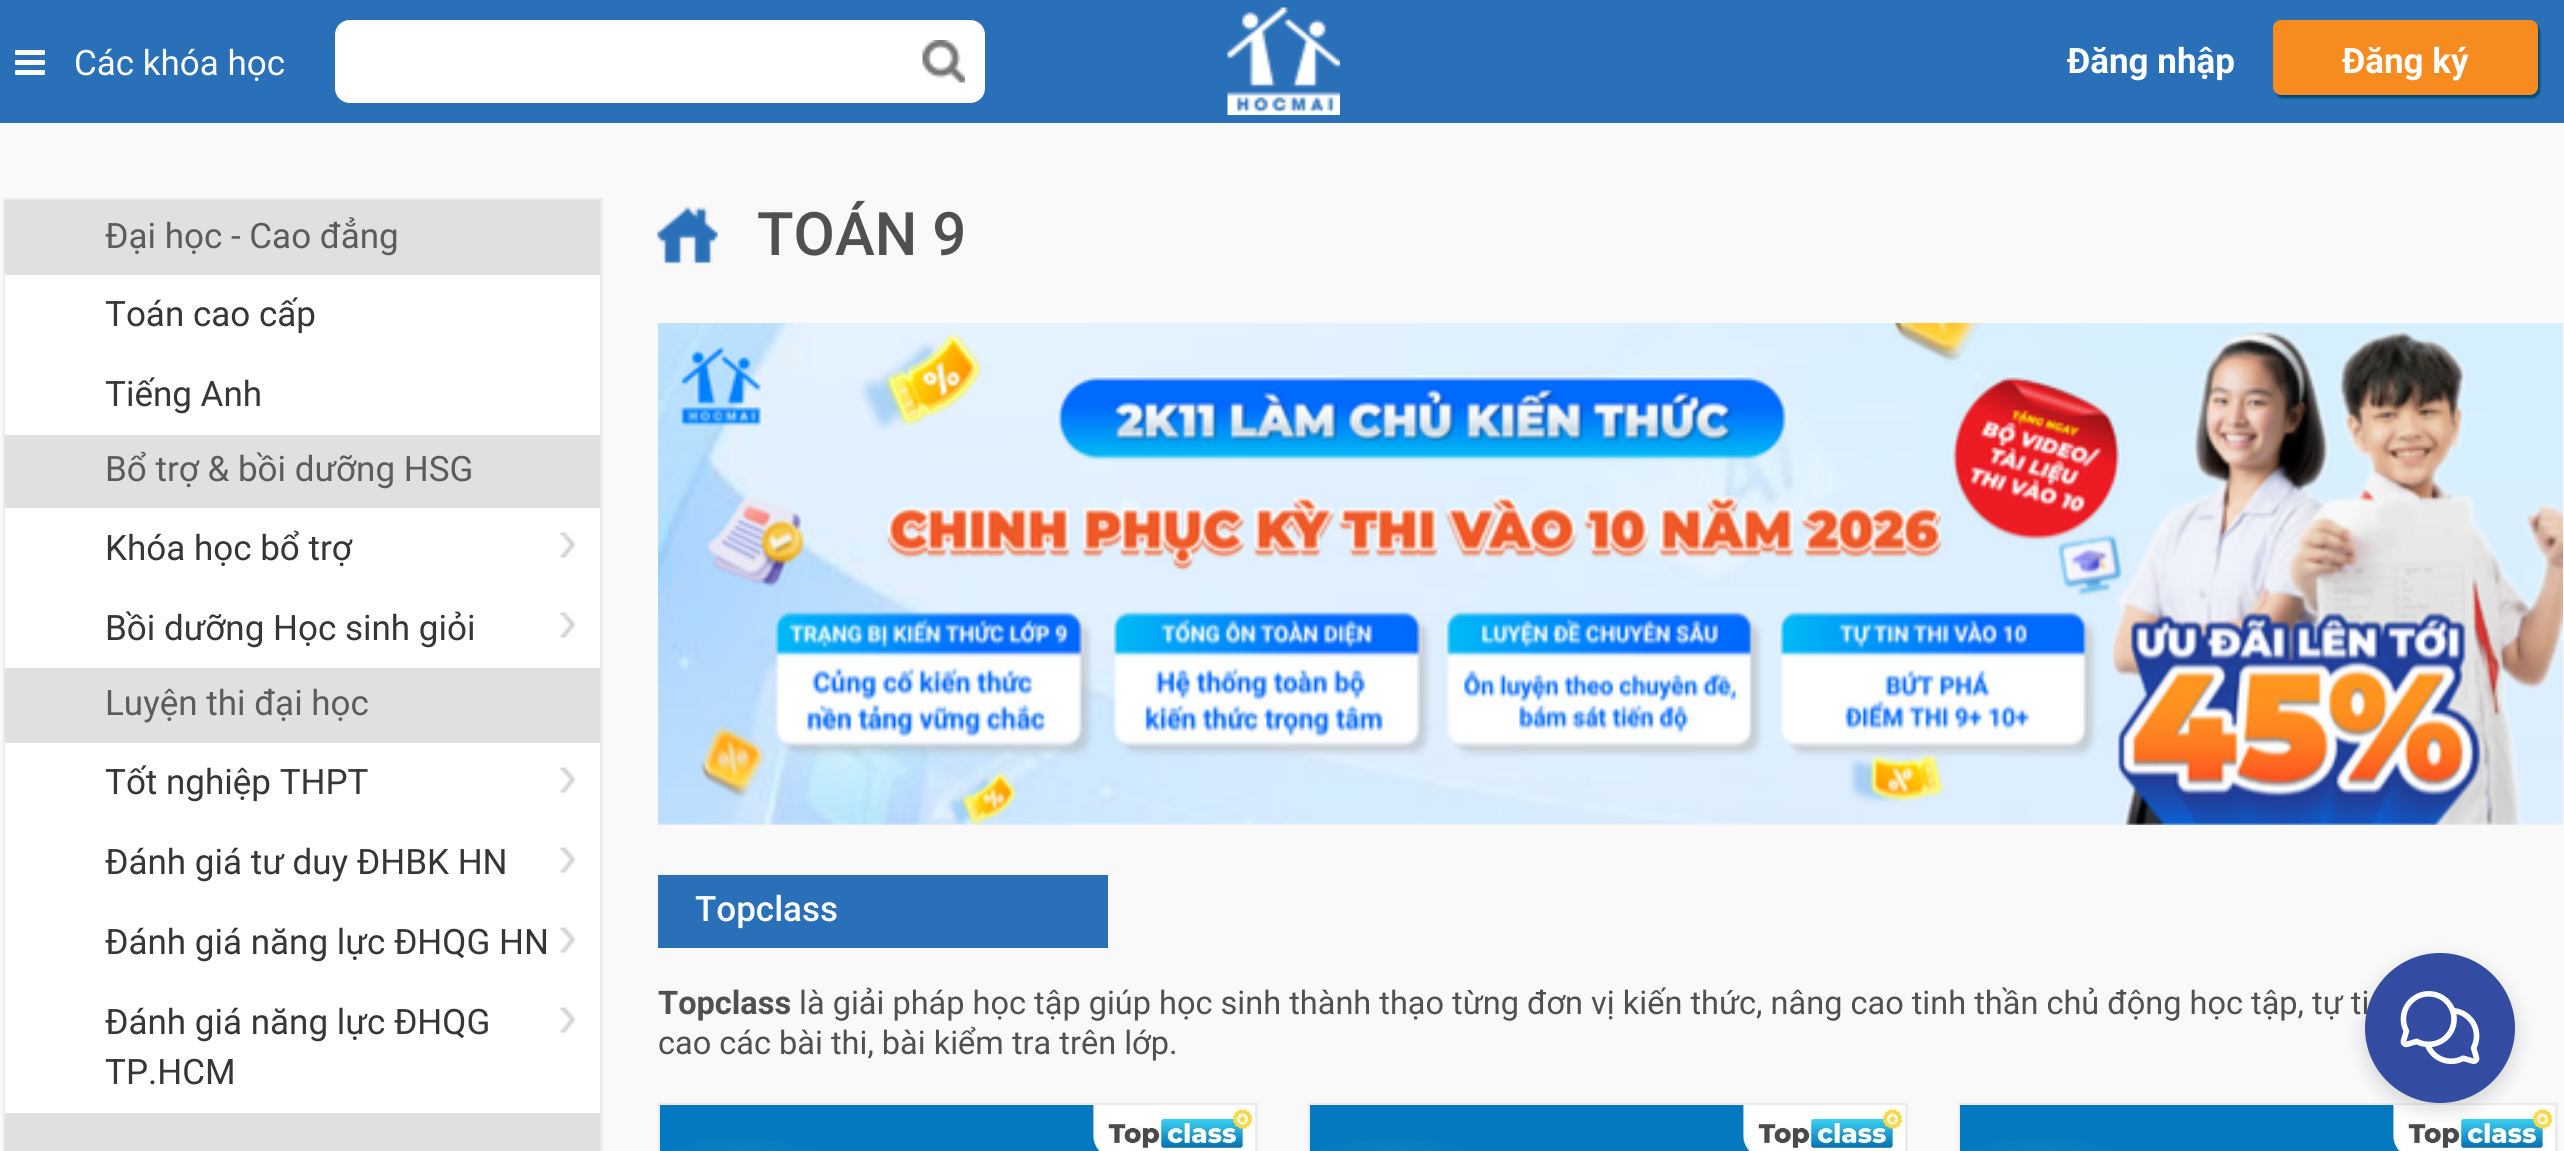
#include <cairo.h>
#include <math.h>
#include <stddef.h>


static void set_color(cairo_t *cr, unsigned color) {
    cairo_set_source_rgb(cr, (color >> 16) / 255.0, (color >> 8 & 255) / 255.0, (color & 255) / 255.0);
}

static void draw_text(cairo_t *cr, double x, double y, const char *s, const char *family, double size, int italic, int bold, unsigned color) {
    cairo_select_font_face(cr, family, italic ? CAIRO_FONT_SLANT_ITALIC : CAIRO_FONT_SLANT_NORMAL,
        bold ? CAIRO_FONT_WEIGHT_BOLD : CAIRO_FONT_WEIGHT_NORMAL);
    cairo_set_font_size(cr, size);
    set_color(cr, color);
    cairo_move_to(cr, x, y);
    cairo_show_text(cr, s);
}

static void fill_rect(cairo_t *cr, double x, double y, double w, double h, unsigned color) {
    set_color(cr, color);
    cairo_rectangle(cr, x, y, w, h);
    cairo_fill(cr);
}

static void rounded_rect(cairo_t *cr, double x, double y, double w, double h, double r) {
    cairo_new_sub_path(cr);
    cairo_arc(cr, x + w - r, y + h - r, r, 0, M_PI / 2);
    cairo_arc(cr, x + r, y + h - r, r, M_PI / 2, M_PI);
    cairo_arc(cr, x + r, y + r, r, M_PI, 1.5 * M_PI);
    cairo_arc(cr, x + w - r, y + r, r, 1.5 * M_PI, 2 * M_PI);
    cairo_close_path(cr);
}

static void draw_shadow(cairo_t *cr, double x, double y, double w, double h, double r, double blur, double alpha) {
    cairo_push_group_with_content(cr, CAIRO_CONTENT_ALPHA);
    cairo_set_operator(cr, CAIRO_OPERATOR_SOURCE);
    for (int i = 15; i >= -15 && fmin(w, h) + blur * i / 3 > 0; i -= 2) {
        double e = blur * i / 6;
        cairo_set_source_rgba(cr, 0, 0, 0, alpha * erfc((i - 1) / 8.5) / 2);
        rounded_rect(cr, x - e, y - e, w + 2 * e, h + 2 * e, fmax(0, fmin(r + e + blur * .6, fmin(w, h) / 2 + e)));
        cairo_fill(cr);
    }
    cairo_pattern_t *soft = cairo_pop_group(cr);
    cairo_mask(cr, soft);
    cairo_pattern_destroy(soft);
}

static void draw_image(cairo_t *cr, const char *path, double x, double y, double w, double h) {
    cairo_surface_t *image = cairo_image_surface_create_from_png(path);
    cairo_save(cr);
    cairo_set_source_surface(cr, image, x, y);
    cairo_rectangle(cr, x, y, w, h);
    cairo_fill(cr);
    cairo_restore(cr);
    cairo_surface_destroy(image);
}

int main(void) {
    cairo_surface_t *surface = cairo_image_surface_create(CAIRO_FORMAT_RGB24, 2564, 1151);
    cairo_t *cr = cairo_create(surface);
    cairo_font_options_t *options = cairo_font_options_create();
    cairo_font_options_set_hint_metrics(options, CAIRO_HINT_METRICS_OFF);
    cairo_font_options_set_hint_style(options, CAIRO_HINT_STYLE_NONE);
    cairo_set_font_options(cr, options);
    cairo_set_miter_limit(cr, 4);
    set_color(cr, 0xF9F9F9);
    cairo_paint(cr);
    fill_rect(cr, 0, 0, 2564, 123, 0x2A70B8);
    draw_image(cr, "assets/img1.png", 15, 50, 30, 25);
    draw_text(cr, 74, 75, "Các khóa học", "Roboto", 35, 0, 0, 0xFFFFFF);
    cairo_new_path(cr);
    cairo_move_to(cr, 350, 20);
    cairo_line_to(cr, 903, 20);
    cairo_line_to(cr, 903, 103);
    cairo_line_to(cr, 350, 103);
    cairo_curve_to(cr, 341.5, 103, 335, 96.5, 335, 88);
    cairo_line_to(cr, 335, 35);
    cairo_curve_to(cr, 335, 26.5, 341.5, 20, 350, 20);
    cairo_close_path(cr);
    cairo_fill(cr);
    cairo_new_path(cr);
    cairo_move_to(cr, 903, 20);
    cairo_line_to(cr, 970, 20);
    cairo_curve_to(cr, 978.5, 20, 985, 26.5, 985, 35);
    cairo_line_to(cr, 985, 88);
    cairo_curve_to(cr, 985, 96.5, 978.5, 103, 970, 103);
    cairo_line_to(cr, 903, 103);
    cairo_close_path(cr);
    cairo_fill(cr);
    draw_image(cr, "assets/img2.png", 922, 40, 43, 43);
    draw_image(cr, "assets/img3.png", 1227, 7, 113, 108);
    draw_text(cr, 2067, 73, "Đăng nhập", "Roboto", 35, 0, 1, 0xFFFFFF);
    set_color(cr, 0x004776);
    draw_shadow(cr, 2275, 23, 265, 75, 8, 1, 1);
    set_color(cr, 0xF68B20);
    rounded_rect(cr, 2273, 20, 265, 75, 8);
    cairo_fill(cr);
    draw_text(cr, 2342, 73, "Đăng ký", "Roboto", 35, 0, 1, 0xFFFFFF);
    fill_rect(cr, 3, 198, 600, 2, 0xEBEBEB);
    fill_rect(cr, 600, 198, 3, 953, 0xEBEBEB);
    fill_rect(cr, 3, 198, 3, 953, 0xEBEBEB);
    fill_rect(cr, 5, 200, 595, 75, 0xE0E0E0);
    draw_text(cr, 105, 248, "Đại học - Cao đẳng", "Roboto", 35, 0, 0, 0x5C5C5C);
    fill_rect(cr, 5, 275, 595, 160, 0xFFFFFF);
    draw_text(cr, 105, 326, "Toán cao cấp", "Roboto", 35, 0, 0, 0x363636);
    draw_text(cr, 105, 406, "Tiếng Anh", "Roboto", 35, 0, 0, 0x363636);
    fill_rect(cr, 5, 435, 595, 73, 0xE0E0E0);
    draw_text(cr, 105, 481, "Bổ trợ & bồi dưỡng HSG", "Roboto", 35, 0, 0, 0x5C5C5C);
    fill_rect(cr, 5, 508, 595, 160, 0xFFFFFF);
    draw_text(cr, 105, 560, "Khóa học bổ trợ", "Roboto", 35, 0, 0, 0x363636);
    draw_image(cr, "assets/img4.png", 560, 532, 15, 26);
    draw_text(cr, 105, 640, "Bồi dưỡng Học sinh giỏi", "Roboto", 35, 0, 0, 0x363636);
    draw_image(cr, "assets/img4.png", 560, 612, 15, 26);
    fill_rect(cr, 5, 668, 595, 75, 0xE0E0E0);
    draw_text(cr, 105, 715, "Luyện thi đại học", "Roboto", 35, 0, 0, 0x5C5C5C);
    fill_rect(cr, 5, 743, 595, 370, 0xFFFFFF);
    draw_text(cr, 105, 794, "Tốt nghiệp THPT", "Roboto", 35, 0, 0, 0x363636);
    draw_image(cr, "assets/img4.png", 560, 767, 15, 26);
    draw_text(cr, 105, 874, "Đánh giá tư duy ĐHBK HN", "Roboto", 35, 0, 0, 0x363636);
    draw_image(cr, "assets/img4.png", 560, 847, 15, 26);
    draw_text(cr, 105, 954, "Đánh giá năng lực ĐHQG HN", "Roboto", 35, 0, 0, 0x363636);
    draw_image(cr, "assets/img4.png", 560, 927, 15, 26);
    draw_text(cr, 105, 1034, "Đánh giá năng lực ĐHQG", "Roboto", 35, 0, 0, 0x363636);
    draw_image(cr, "assets/img4.png", 560, 1007, 15, 26);
    draw_text(cr, 105, 1084, "TP.HCM", "Roboto", 35, 0, 0, 0x363636);
    fill_rect(cr, 5, 1113, 595, 38, 0xE0E0E0);
    draw_image(cr, "assets/img5.png", 657, 206, 61, 58);
    draw_text(cr, 757, 255, "TOÁN 9", "Roboto Medium", 60, 0, 0, 0x505050);
    draw_image(cr, "assets/img6.png", 658, 323, 1905, 502);
    fill_rect(cr, 658, 875, 450, 73, 0x2A70B8);
    draw_text(cr, 695, 921, "Topclass", "Roboto Medium", 35, 0, 0, 0xFFFFFF);
    draw_text(cr, 658, 1014, "Topclass", "Roboto", 32.5, 0, 1, 0x505050);
    draw_text(cr, 799, 1014, "là giải pháp học tập giúp học sinh thành thạo từng đơn vị kiến thức, nâng cao tinh thần chủ động học tập, tự ti", "Roboto", 32.5, 0, 0, 0x505050);
    draw_text(cr, 658, 1054, "cao các bài thi, bài kiểm tra trên lớp.", "Roboto", 32.5, 0, 0, 0x505050);
    cairo_rectangle(cr, 659.5, 1104.5, 597, 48);
    set_color(cr, 0xECECEC);
    cairo_set_line_width(cr, 3);
    cairo_stroke(cr);
    draw_image(cr, "assets/img7.png", 660, 1105, 595, 46);
    cairo_rectangle(cr, 1309.5, 1104.5, 597, 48);
    cairo_stroke(cr);
    draw_image(cr, "assets/img8.png", 1310, 1105, 595, 46);
    cairo_rectangle(cr, 1959.5, 1104.5, 597, 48);
    cairo_stroke(cr);
    draw_image(cr, "assets/img8.png", 1960, 1105, 595, 46);
    set_color(cr, 0x000000);
    draw_shadow(cr, 2365, 960, 150, 150, 75, 10, 0.15);
    set_color(cr, 0x334CA1);
    cairo_arc(cr, 2440, 1028, 75, 0, 2 * M_PI);
    cairo_fill(cr);
    draw_image(cr, "assets/img9.png", 2400, 991, 80, 74);
    cairo_surface_write_to_png(surface, "output.png");
    cairo_font_options_destroy(options);
    cairo_destroy(cr);
    cairo_surface_destroy(surface);
    return 0;
}
